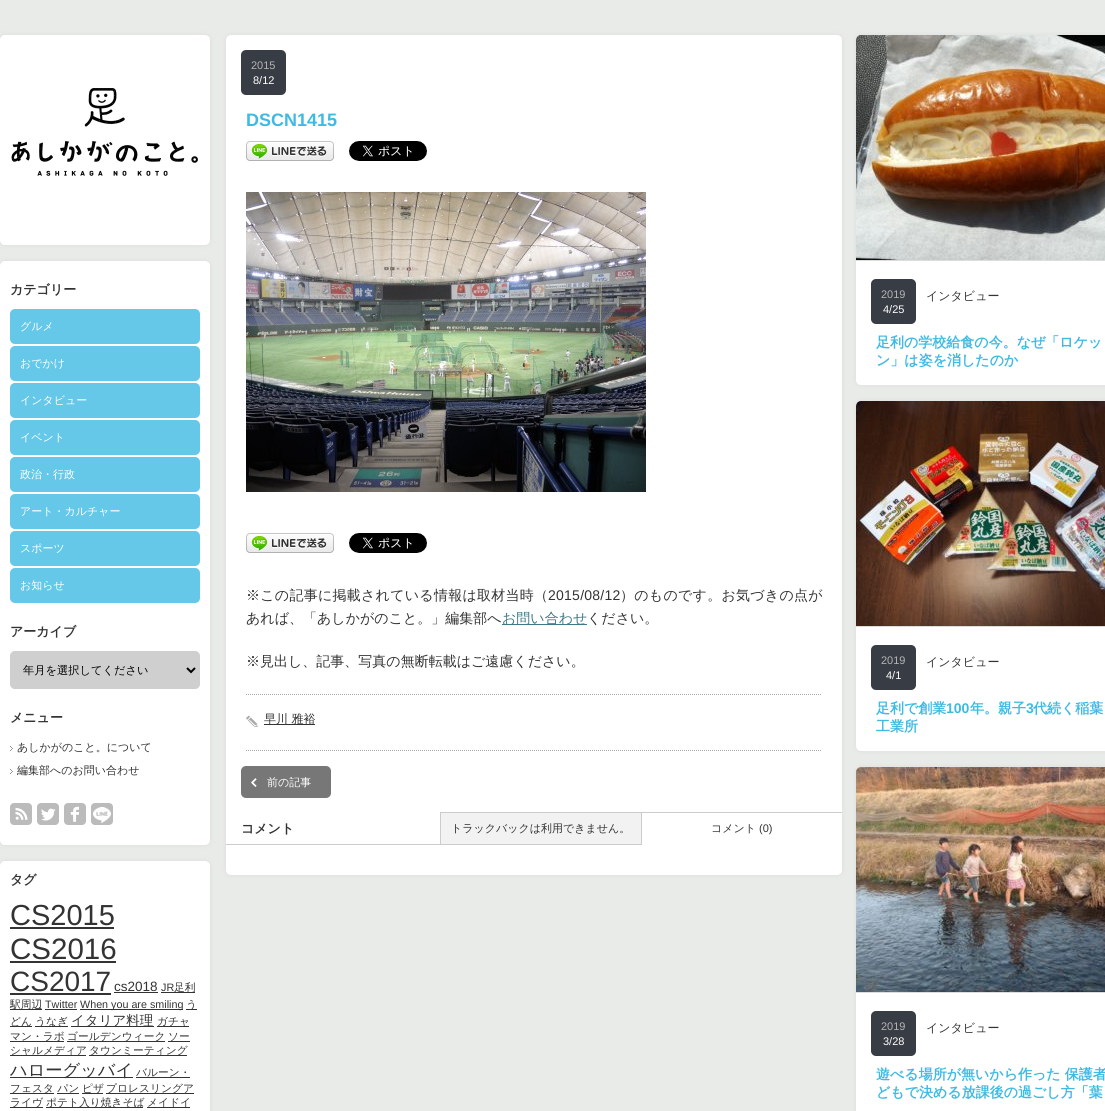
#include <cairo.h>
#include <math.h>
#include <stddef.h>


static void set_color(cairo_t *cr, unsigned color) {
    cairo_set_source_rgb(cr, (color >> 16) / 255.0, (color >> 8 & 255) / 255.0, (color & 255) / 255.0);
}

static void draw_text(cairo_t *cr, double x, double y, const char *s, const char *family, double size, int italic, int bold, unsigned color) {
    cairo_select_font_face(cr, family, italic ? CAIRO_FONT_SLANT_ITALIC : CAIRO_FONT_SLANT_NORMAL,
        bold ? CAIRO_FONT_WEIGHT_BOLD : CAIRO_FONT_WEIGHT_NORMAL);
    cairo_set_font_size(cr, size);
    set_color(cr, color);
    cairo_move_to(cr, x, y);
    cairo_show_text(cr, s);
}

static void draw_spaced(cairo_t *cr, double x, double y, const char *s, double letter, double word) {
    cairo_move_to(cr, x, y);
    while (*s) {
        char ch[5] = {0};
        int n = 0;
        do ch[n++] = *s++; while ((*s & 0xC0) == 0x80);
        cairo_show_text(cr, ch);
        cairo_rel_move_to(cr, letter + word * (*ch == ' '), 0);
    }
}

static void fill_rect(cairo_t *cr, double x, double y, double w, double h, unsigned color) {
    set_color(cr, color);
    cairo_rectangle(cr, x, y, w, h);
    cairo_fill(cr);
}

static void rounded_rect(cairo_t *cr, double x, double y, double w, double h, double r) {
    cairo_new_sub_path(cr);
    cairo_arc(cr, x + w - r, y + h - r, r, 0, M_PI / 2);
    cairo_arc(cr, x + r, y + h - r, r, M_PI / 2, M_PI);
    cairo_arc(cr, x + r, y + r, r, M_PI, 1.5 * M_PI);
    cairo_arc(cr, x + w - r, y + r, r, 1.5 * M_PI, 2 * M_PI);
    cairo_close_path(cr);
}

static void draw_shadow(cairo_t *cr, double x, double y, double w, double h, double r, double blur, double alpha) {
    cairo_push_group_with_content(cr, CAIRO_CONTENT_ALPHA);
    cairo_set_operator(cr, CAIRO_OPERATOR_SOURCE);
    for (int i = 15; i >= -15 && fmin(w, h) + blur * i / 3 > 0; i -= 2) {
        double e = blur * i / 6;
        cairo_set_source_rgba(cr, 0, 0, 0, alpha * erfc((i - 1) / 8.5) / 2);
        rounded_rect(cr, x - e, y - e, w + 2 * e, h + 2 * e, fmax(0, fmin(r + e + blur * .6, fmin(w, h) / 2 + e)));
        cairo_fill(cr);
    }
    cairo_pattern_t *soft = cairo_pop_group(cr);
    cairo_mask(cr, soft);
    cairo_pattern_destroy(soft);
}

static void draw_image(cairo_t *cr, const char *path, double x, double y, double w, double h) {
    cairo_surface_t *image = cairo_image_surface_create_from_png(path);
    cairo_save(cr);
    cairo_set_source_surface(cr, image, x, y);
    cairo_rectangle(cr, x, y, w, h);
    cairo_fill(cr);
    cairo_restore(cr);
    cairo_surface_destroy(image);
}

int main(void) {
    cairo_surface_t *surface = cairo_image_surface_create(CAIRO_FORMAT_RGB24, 1105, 1111);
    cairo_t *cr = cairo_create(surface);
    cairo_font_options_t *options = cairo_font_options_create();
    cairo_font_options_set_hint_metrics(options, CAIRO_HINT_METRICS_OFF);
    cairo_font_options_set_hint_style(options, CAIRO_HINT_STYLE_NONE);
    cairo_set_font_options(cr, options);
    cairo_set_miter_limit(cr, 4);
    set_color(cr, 0xE9EBE8);
    cairo_paint(cr);
    set_color(cr, 0xDDDDDD);
    draw_shadow(cr, 0, 35, 210, 210, 5, 2.5, 1);
    set_color(cr, 0xFFFFFF);
    rounded_rect(cr, 0, 35, 210, 210, 5);
    cairo_fill(cr);
    draw_image(cr, "assets/img1.png", 11, 88, 187, 88);
    set_color(cr, 0xDDDDDD);
    draw_shadow(cr, 0, 261, 210, 584, 5, 2.5, 1);
    set_color(cr, 0xFFFFFF);
    rounded_rect(cr, 0, 261, 210, 584, 5);
    cairo_fill(cr);
    draw_text(cr, 10, 294, "カテゴリー", "WenQuanYi Zen Hei", 13, 0, 1, 0x333333);
    set_color(cr, 0x65C8E8);
    rounded_rect(cr, 10, 309, 190, 35, 5);
    cairo_fill(cr);
    draw_text(cr, 20, 330, "グルメ", "WenQuanYi Zen Hei Medium", 11, 0, 0, 0xFFFFFF);
    set_color(cr, 0x65C8E8);
    rounded_rect(cr, 10, 346, 190, 35, 5);
    cairo_fill(cr);
    draw_text(cr, 20, 367, "おでかけ", "WenQuanYi Zen Hei Medium", 11, 0, 0, 0xFFFFFF);
    set_color(cr, 0x65C8E8);
    rounded_rect(cr, 10, 383, 190, 35, 5);
    cairo_fill(cr);
    draw_text(cr, 20, 404, "インタビュー", "WenQuanYi Zen Hei Medium", 11, 0, 0, 0xFFFFFF);
    set_color(cr, 0x65C8E8);
    rounded_rect(cr, 10, 420, 190, 35, 5);
    cairo_fill(cr);
    draw_text(cr, 20, 441, "イベント", "WenQuanYi Zen Hei Medium", 11, 0, 0, 0xFFFFFF);
    set_color(cr, 0x65C8E8);
    rounded_rect(cr, 10, 457, 190, 35, 5);
    cairo_fill(cr);
    draw_text(cr, 20, 478, "政治・行政", "WenQuanYi Zen Hei Medium", 11, 0, 0, 0xFFFFFF);
    set_color(cr, 0x65C8E8);
    rounded_rect(cr, 10, 494, 190, 35, 5);
    cairo_fill(cr);
    draw_text(cr, 20, 515, "アート・カルチャー", "WenQuanYi Zen Hei Medium", 11, 0, 0, 0xFFFFFF);
    set_color(cr, 0x65C8E8);
    rounded_rect(cr, 10, 531, 190, 35, 5);
    cairo_fill(cr);
    draw_text(cr, 20, 552, "スポーツ", "WenQuanYi Zen Hei Medium", 11, 0, 0, 0xFFFFFF);
    set_color(cr, 0x65C8E8);
    rounded_rect(cr, 10, 568, 190, 35, 5);
    cairo_fill(cr);
    draw_text(cr, 20, 589, "お知らせ", "WenQuanYi Zen Hei Medium", 11, 0, 0, 0xFFFFFF);
    draw_text(cr, 10, 636, "アーカイブ", "WenQuanYi Zen Hei", 13, 0, 1, 0x333333);
    set_color(cr, 0xCFCFCF);
    rounded_rect(cr, 10.5, 651.5, 189, 37, 4.5);
    cairo_fill_preserve(cr);
    cairo_set_line_width(cr, 1);
    cairo_stroke(cr);
    cairo_new_path(cr);
    cairo_move_to(cr, 187, 668);
    cairo_line_to(cr, 191, 672);
    cairo_line_to(cr, 195, 668);
    set_color(cr, 0x000000);
    cairo_set_line_width(cr, 2);
    cairo_stroke(cr);
    draw_text(cr, 23, 674, "年月を選択してください", "WenQuanYi Zen Hei Medium", 11.25, 0, 0, 0x000000);
    draw_text(cr, 10, 722, "メニュー", "WenQuanYi Zen Hei", 13, 0, 1, 0x333333);
    draw_image(cr, "assets/img2.png", 10, 746, 3, 5);
    draw_text(cr, 17, 751, "あしかがのこと。について", "WenQuanYi Zen Hei Medium", 11, 0, 0, 0x333333);
    draw_image(cr, "assets/img2.png", 10, 769, 3, 5);
    draw_text(cr, 17, 774, "編集部へのお問い合わせ", "WenQuanYi Zen Hei Medium", 11, 0, 0, 0x333333);
    draw_image(cr, "assets/img3.png", 10, 803, 22, 22);
    draw_image(cr, "assets/img4.png", 37, 803, 22, 22);
    draw_image(cr, "assets/img5.png", 64, 803, 22, 22);
    draw_image(cr, "assets/img6.png", 91, 803, 22, 22);
    set_color(cr, 0xDDDDDD);
    draw_shadow(cr, 0, 861, 210, 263, 5, 2.5, 1);
    set_color(cr, 0xFFFFFF);
    rounded_rect(cr, 0, 861, 210, 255, 5);
    cairo_fill(cr);
    draw_text(cr, 10, 884, "タグ", "WenQuanYi Zen Hei", 13, 0, 1, 0x333333);
    draw_text(cr, 10, 925, "CS2015", "Liberation Sans", 29, 0, 0, 0x333333);
    fill_rect(cr, 10, 927, 104, 2, 0x333333);
    draw_text(cr, 10, 959, "CS2016", "Liberation Sans", 29.5, 0, 0, 0x333333);
    fill_rect(cr, 10, 961, 106, 2, 0x333333);
    draw_text(cr, 10, 991, "CS2017", "Liberation Sans", 28, 0, 0, 0x333333);
    fill_rect(cr, 10, 993, 101, 2, 0x333333);
    draw_text(cr, 114, 991, "cs2018", "Liberation Sans", 13.5, 0, 0, 0x333333);
    fill_rect(cr, 114, 992, 44, 1, 0x333333);
    draw_text(cr, 161, 991, "JR", "Liberation Sans", 10.75, 0, 0, 0x333333);
    fill_rect(cr, 161, 992, 34, 1, 0x333333);
    draw_text(cr, 174, 991, "足利", "WenQuanYi Zen Hei Medium", 10.75, 0, 0, 0x333333);
    fill_rect(cr, 10, 1009, 32, 1, 0x333333);
    draw_text(cr, 10, 1008, "駅周辺", "WenQuanYi Zen Hei Medium", 10.75, 0, 0, 0x333333);
    draw_text(cr, 45, 1008, "Twitter", "Liberation Sans", 10.75, 0, 0, 0x333333);
    fill_rect(cr, 45, 1009, 32, 1, 0x333333);
    fill_rect(cr, 80, 1009, 103, 1, 0x333333);
    draw_text(cr, 80, 1008, "When you are smiling", "Liberation Sans", 10.75, 0, 0, 0x333333);
    fill_rect(cr, 186, 1009, 11, 1, 0x333333);
    draw_text(cr, 186, 1008, "う", "WenQuanYi Zen Hei Medium", 10.75, 0, 0, 0x333333);
    fill_rect(cr, 10, 1026, 22, 1, 0x333333);
    draw_text(cr, 10, 1025, "どん", "WenQuanYi Zen Hei Medium", 10.75, 0, 0, 0x333333);
    fill_rect(cr, 35, 1026, 33, 1, 0x333333);
    draw_text(cr, 35, 1025, "うなぎ", "WenQuanYi Zen Hei Medium", 10.75, 0, 0, 0x333333);
    fill_rect(cr, 71, 1026, 83, 1, 0x333333);
    draw_text(cr, 71, 1025, "イタリア料理", "WenQuanYi Zen Hei Medium", 13.5, 0, 0, 0x333333);
    fill_rect(cr, 157, 1026, 32, 1, 0x333333);
    draw_text(cr, 157, 1025, "ガチャ", "WenQuanYi Zen Hei Medium", 10.75, 0, 0, 0x333333);
    fill_rect(cr, 10, 1041, 54, 1, 0x333333);
    draw_text(cr, 10, 1040, "マン・ラボ", "WenQuanYi Zen Hei Medium", 10.75, 0, 0, 0x333333);
    fill_rect(cr, 67, 1041, 98, 1, 0x333333);
    draw_text(cr, 67, 1040, "ゴールデンウィーク", "WenQuanYi Zen Hei Medium", 10.75, 0, 0, 0x333333);
    fill_rect(cr, 168, 1041, 22, 1, 0x333333);
    draw_text(cr, 168, 1040, "ソー", "WenQuanYi Zen Hei Medium", 10.75, 0, 0, 0x333333);
    fill_rect(cr, 10, 1055, 76, 1, 0x333333);
    draw_text(cr, 10, 1054, "シャルメディア", "WenQuanYi Zen Hei Medium", 10.75, 0, 0, 0x333333);
    fill_rect(cr, 89, 1055, 98, 1, 0x333333);
    draw_text(cr, 89, 1054, "タウンミーティング", "WenQuanYi Zen Hei Medium", 10.75, 0, 0, 0x333333);
    fill_rect(cr, 10, 1077, 123, 1, 0x333333);
    draw_text(cr, 10, 1076, "ハローグッバイ", "WenQuanYi Zen Hei Medium", 17.25, 0, 0, 0x333333);
    draw_text(cr, 136, 1076, "バルーン・", "WenQuanYi Zen Hei Medium", 10.75, 0, 0, 0x333333);
    fill_rect(cr, 136, 1077, 54, 1, 0x333333);
    fill_rect(cr, 10, 1093, 44, 1, 0x333333);
    draw_text(cr, 10, 1092, "フェスタ パン", "WenQuanYi Zen Hei Medium", 10.75, 0, 0, 0x333333);
    fill_rect(cr, 82, 1093, 21, 1, 0x333333);
    draw_text(cr, 82, 1092, "ピザ", "WenQuanYi Zen Hei Medium", 10.75, 0, 0, 0x333333);
    fill_rect(cr, 106, 1093, 88, 1, 0x333333);
    draw_text(cr, 106, 1092, "プロレスリングア", "WenQuanYi Zen Hei Medium", 10.75, 0, 0, 0x333333);
    fill_rect(cr, 57, 1093, 22, 1, 0x333333);
    fill_rect(cr, 10, 1107, 33, 1, 0x333333);
    draw_text(cr, 10, 1106, "ライヴ", "WenQuanYi Zen Hei Medium", 10.75, 0, 0, 0x333333);
    fill_rect(cr, 46, 1107, 97, 1, 0x333333);
    draw_text(cr, 46, 1106, "ポテト入り焼きそば", "WenQuanYi Zen Hei Medium", 10.75, 0, 0, 0x333333);
    fill_rect(cr, 147, 1107, 43, 1, 0x333333);
    draw_text(cr, 147, 1106, "メイドイ", "WenQuanYi Zen Hei Medium", 10.75, 0, 0, 0x333333);
    set_color(cr, 0xDDDDDD);
    draw_shadow(cr, 226, 35, 616, 840, 5, 2.5, 1);
    set_color(cr, 0xFFFFFF);
    rounded_rect(cr, 226, 35, 616, 840, 5);
    cairo_fill(cr);
    set_color(cr, 0x383C45);
    rounded_rect(cr, 241, 50, 45, 45, 5);
    cairo_fill(cr);
    draw_text(cr, 251, 69, "2015", "Liberation Sans", 11, 0, 0, 0xB3B5B4);
    draw_text(cr, 253, 84, "8/12", "Liberation Sans", 11, 0, 0, 0xFFFFFF);
    draw_text(cr, 246, 126, "DSCN1415", "Liberation Sans", 18, 0, 1, 0x3FBAE3);
    draw_image(cr, "assets/img7.png", 246, 141, 88, 20);
    draw_image(cr, "assets/img8.png", 349, 141, 78, 20);
    draw_image(cr, "assets/img9.png", 246, 192, 400, 300);
    draw_image(cr, "assets/img7.png", 246, 533, 88, 20);
    draw_image(cr, "assets/img8.png", 349, 533, 78, 20);
    cairo_select_font_face(cr, "WenQuanYi Zen Hei Medium", CAIRO_FONT_SLANT_NORMAL, CAIRO_FONT_WEIGHT_NORMAL);
    cairo_set_font_size(cr, 14);
    set_color(cr, 0x333333);
    draw_spaced(cr, 246, 600, "※この記事に掲載されている情報は取材当時（", 0.25, 0);
    cairo_select_font_face(cr, "Liberation Sans", CAIRO_FONT_SLANT_NORMAL, CAIRO_FONT_WEIGHT_NORMAL);
    draw_spaced(cr, 548, 600, "2015/08/12", 0.25, 0);
    cairo_select_font_face(cr, "WenQuanYi Zen Hei Medium", CAIRO_FONT_SLANT_NORMAL, CAIRO_FONT_WEIGHT_NORMAL);
    draw_spaced(cr, 620, 600, "）のものです。お気づきの点が", 0.25, 0);
    draw_text(cr, 246, 623, "あれば、「あしかがのこと。」編集部へ", "WenQuanYi Zen Hei Medium", 14, 0, 0, 0x333333);
    fill_rect(cr, 502, 624, 85, 1, 0x3F7985);
    draw_text(cr, 502, 623, "お問い合わせ", "WenQuanYi Zen Hei Medium", 14, 0, 0, 0x3F7985);
    draw_text(cr, 587, 623, "ください。", "WenQuanYi Zen Hei Medium", 14, 0, 0, 0x333333);
    draw_text(cr, 246, 666, "※見出し、記事、写真の無断転載はご遠慮ください。", "WenQuanYi Zen Hei Medium", 14, 0, 0, 0x333333);
    cairo_new_path(cr);
    cairo_move_to(cr, 246, 694.5);
    cairo_line_to(cr, 822, 694.5);
    set_color(cr, 0xAAAAAA);
    cairo_set_line_width(cr, 1);
    cairo_set_dash(cr, (double[]){1, 1}, 2, 0);
    cairo_stroke(cr);
    cairo_new_path(cr);
    cairo_move_to(cr, 246, 750.5);
    cairo_line_to(cr, 822, 750.5);
    cairo_stroke(cr);
    draw_image(cr, "assets/img10.png", 246, 715, 12, 12);
    fill_rect(cr, 264, 724, 51, 1, 0x333333);
    draw_text(cr, 264, 723, "早川 雅裕", "WenQuanYi Zen Hei Medium", 12, 0, 0, 0x333333);
    set_color(cr, 0x777777);
    rounded_rect(cr, 241, 766, 90, 32, 5);
    cairo_fill(cr);
    draw_image(cr, "assets/img11.png", 251, 778, 6, 9);
    draw_text(cr, 267, 786, "前の記事", "WenQuanYi Zen Hei Medium", 11, 0, 0, 0xFFFFFF);
    fill_rect(cr, 226, 844, 415, 1, 0xCCCCCC);
    draw_text(cr, 241, 833, "コメント", "WenQuanYi Zen Hei", 13, 0, 1, 0x333333);
    fill_rect(cr, 441, 813, 200, 31, 0xF2F2F2);
    fill_rect(cr, 440, 812, 402, 1, 0xCCCCCC);
    fill_rect(cr, 440, 812, 1, 33, 0xCCCCCC);
    draw_text(cr, 451, 832, "トラックバックは利用できません。", "WenQuanYi Zen Hei Medium", 11, 0, 0, 0x333333);
    fill_rect(cr, 641, 812, 1, 33, 0xCCCCCC);
    draw_text(cr, 711, 832, "コメント", "WenQuanYi Zen Hei Medium", 11, 0, 0, 0x333333);
    draw_text(cr, 759, 832, "(0)", "Liberation Sans", 11, 0, 0, 0x333333);
    set_color(cr, 0xDDDDDD);
    draw_shadow(cr, 856, 35, 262, 350, 5, 2.5, 1);
    set_color(cr, 0xFFFFFF);
    rounded_rect(cr, 856, 35, 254, 350, 5);
    cairo_fill(cr);
    draw_image(cr, "assets/img12.png", 856, 35, 249, 225);
    fill_rect(cr, 856, 260, 249, 1, 0xDDDDDD);
    set_color(cr, 0x383C45);
    rounded_rect(cr, 871, 279, 45, 45, 5);
    cairo_fill(cr);
    draw_text(cr, 881, 298, "2019", "Liberation Sans", 11, 0, 0, 0xB3B5B4);
    draw_text(cr, 883, 313, "4/25", "Liberation Sans", 11, 0, 0, 0xFFFFFF);
    draw_text(cr, 926, 300, "インタビュー", "WenQuanYi Zen Hei Medium", 12, 0, 0, 0x333333);
    draw_text(cr, 876, 347, "足利の学校給食の今。なぜ「ロケッ", "WenQuanYi Zen Hei", 14, 0, 1, 0x3FBAE3);
    draw_text(cr, 876, 365, "ン」は姿を消したのか", "WenQuanYi Zen Hei", 14, 0, 1, 0x3FBAE3);
    set_color(cr, 0xDDDDDD);
    draw_shadow(cr, 856, 401, 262, 350, 5, 2.5, 1);
    set_color(cr, 0xFFFFFF);
    rounded_rect(cr, 856, 401, 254, 350, 5);
    cairo_fill(cr);
    draw_image(cr, "assets/img13.png", 856, 401, 249, 225);
    fill_rect(cr, 856, 626, 249, 1, 0xDDDDDD);
    set_color(cr, 0x383C45);
    rounded_rect(cr, 871, 645, 45, 45, 5);
    cairo_fill(cr);
    draw_text(cr, 881, 664, "2019", "Liberation Sans", 11, 0, 0, 0xB3B5B4);
    draw_text(cr, 886, 679, "4/1", "Liberation Sans", 11, 0, 0, 0xFFFFFF);
    draw_text(cr, 926, 666, "インタビュー", "WenQuanYi Zen Hei Medium", 12, 0, 0, 0x333333);
    draw_text(cr, 876, 713, "足利で創業", "WenQuanYi Zen Hei", 14, 0, 1, 0x3FBAE3);
    draw_text(cr, 946, 713, "100", "Liberation Sans", 14, 0, 1, 0x3FBAE3);
    draw_text(cr, 970, 713, "年。親子", "WenQuanYi Zen Hei", 14, 0, 1, 0x3FBAE3);
    draw_text(cr, 1026, 713, "3", "Liberation Sans", 14, 0, 1, 0x3FBAE3);
    draw_text(cr, 1033, 713, "代続く稲葉", "WenQuanYi Zen Hei", 14, 0, 1, 0x3FBAE3);
    draw_text(cr, 876, 731, "工業所", "WenQuanYi Zen Hei", 14, 0, 1, 0x3FBAE3);
    set_color(cr, 0xDDDDDD);
    draw_shadow(cr, 856, 767, 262, 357, 5, 2.5, 1);
    set_color(cr, 0xFFFFFF);
    rounded_rect(cr, 856, 767, 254, 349, 5);
    cairo_fill(cr);
    draw_image(cr, "assets/img14.png", 856, 767, 249, 225);
    fill_rect(cr, 856, 992, 249, 1, 0xDDDDDD);
    set_color(cr, 0x383C45);
    rounded_rect(cr, 871, 1011, 45, 45, 5);
    cairo_fill(cr);
    draw_text(cr, 881, 1030, "2019", "Liberation Sans", 11, 0, 0, 0xB3B5B4);
    draw_text(cr, 883, 1045, "3/28", "Liberation Sans", 11, 0, 0, 0xFFFFFF);
    draw_text(cr, 926, 1032, "インタビュー", "WenQuanYi Zen Hei Medium", 12, 0, 0, 0x333333);
    draw_text(cr, 876, 1079, "遊べる場所が無いから作った 保護者", "WenQuanYi Zen Hei", 14, 0, 1, 0x3FBAE3);
    draw_text(cr, 876, 1097, "どもで決める放課後の過ごし方「葉", "WenQuanYi Zen Hei", 14, 0, 1, 0x3FBAE3);
    cairo_surface_write_to_png(surface, "output.png");
    cairo_font_options_destroy(options);
    cairo_destroy(cr);
    cairo_surface_destroy(surface);
    return 0;
}
